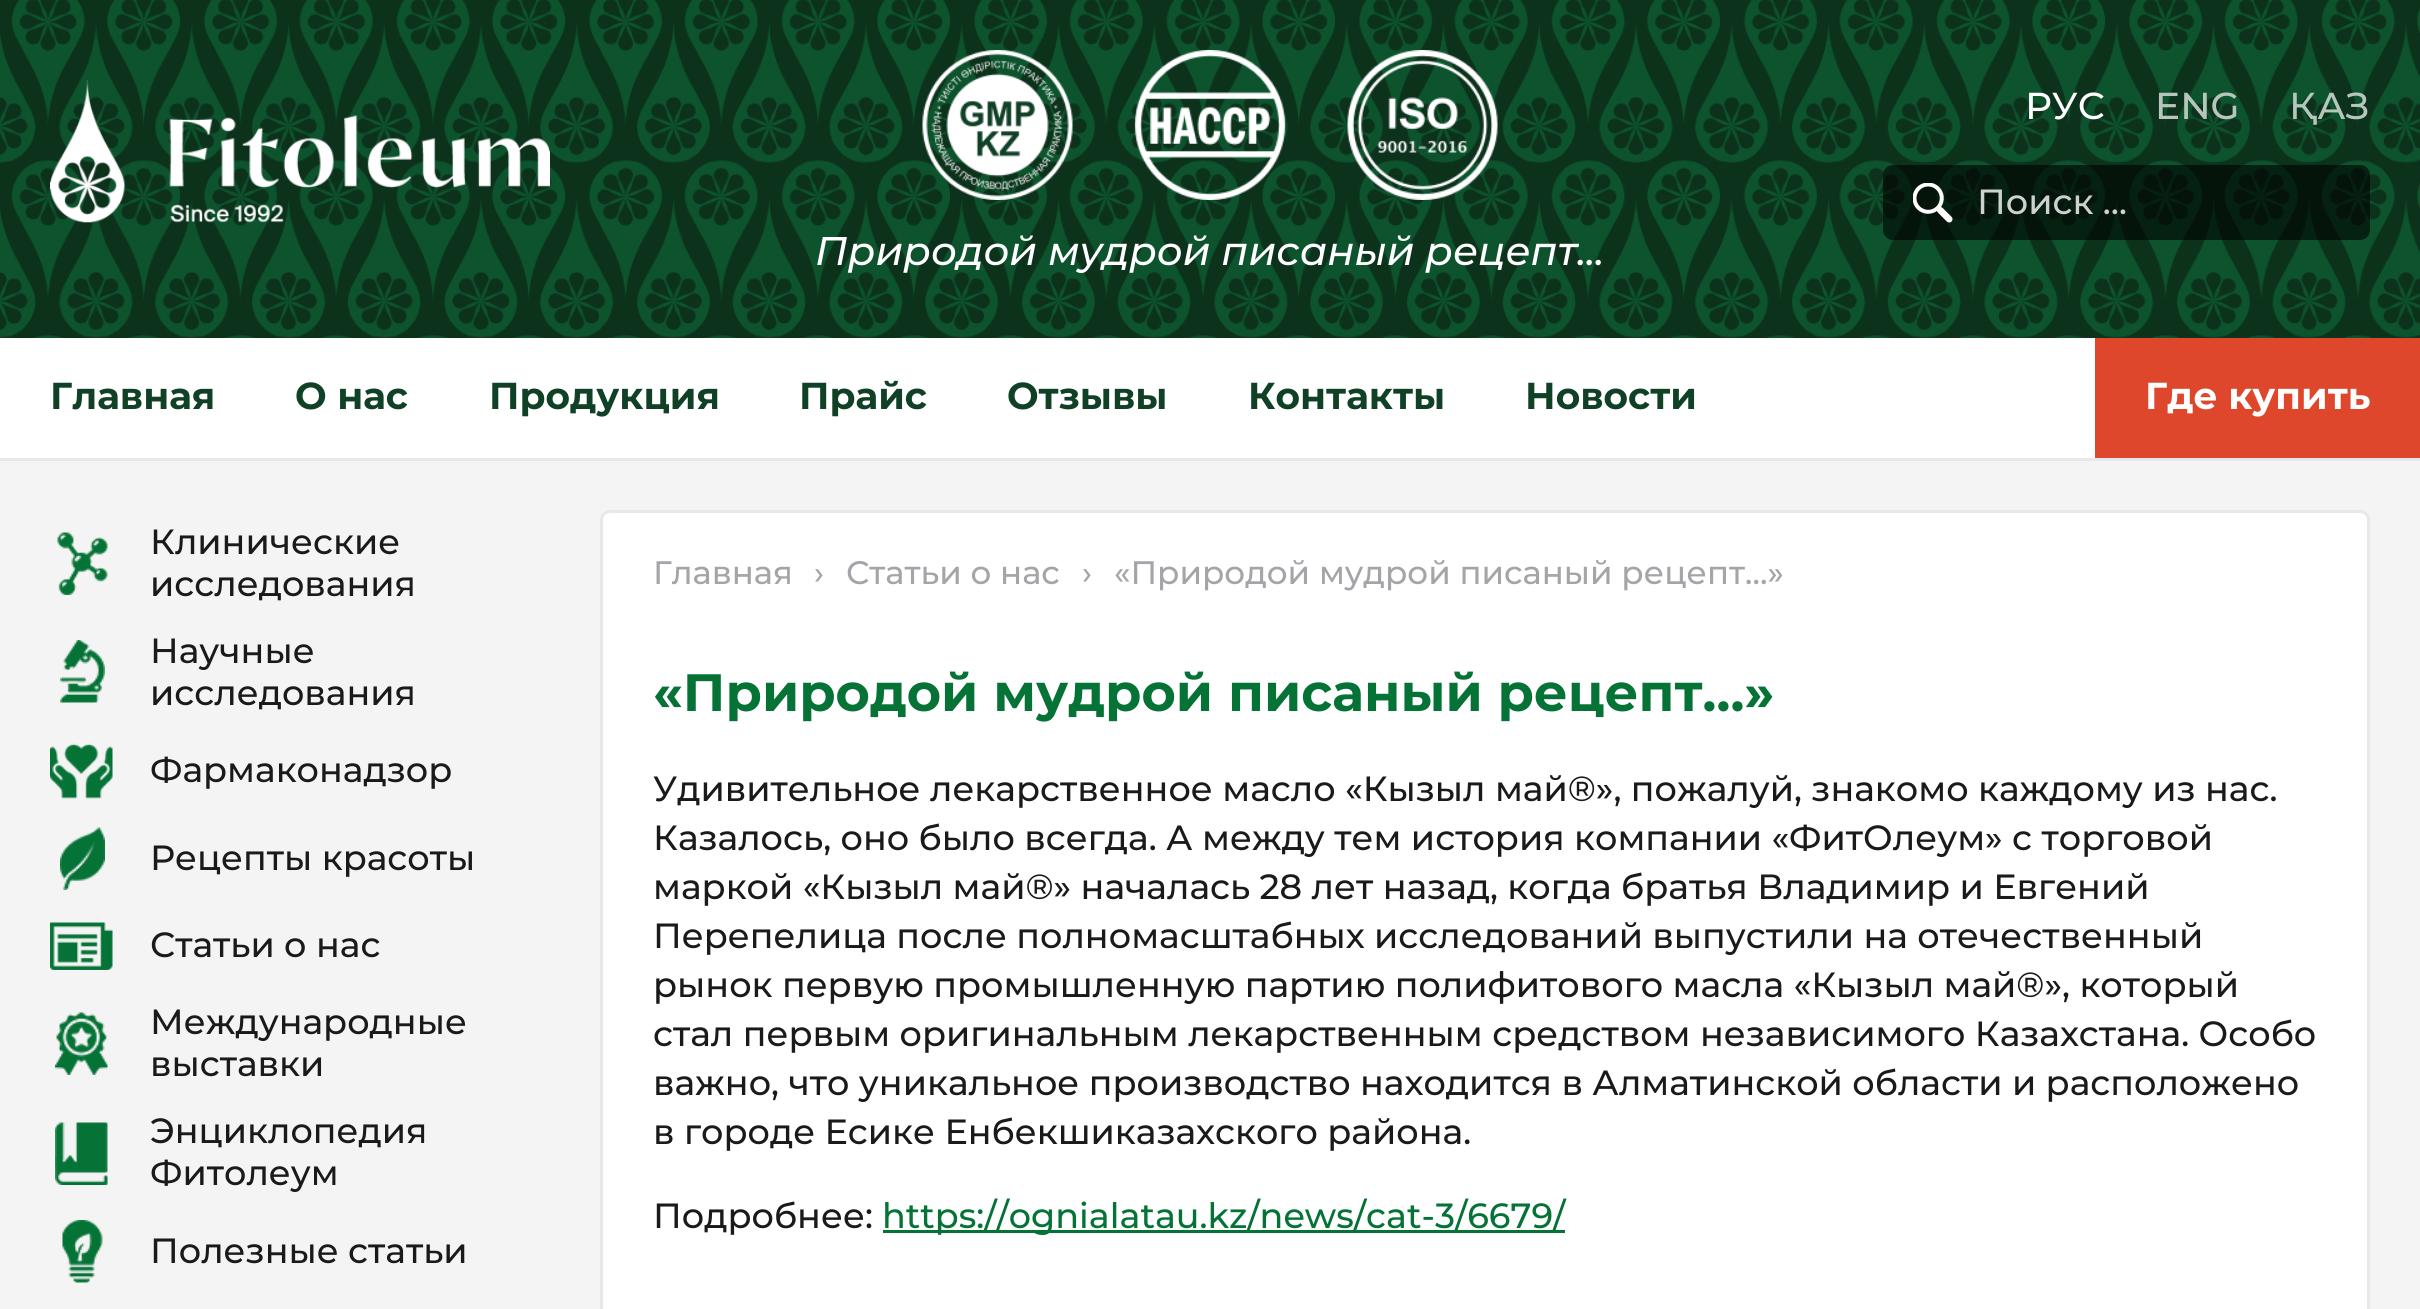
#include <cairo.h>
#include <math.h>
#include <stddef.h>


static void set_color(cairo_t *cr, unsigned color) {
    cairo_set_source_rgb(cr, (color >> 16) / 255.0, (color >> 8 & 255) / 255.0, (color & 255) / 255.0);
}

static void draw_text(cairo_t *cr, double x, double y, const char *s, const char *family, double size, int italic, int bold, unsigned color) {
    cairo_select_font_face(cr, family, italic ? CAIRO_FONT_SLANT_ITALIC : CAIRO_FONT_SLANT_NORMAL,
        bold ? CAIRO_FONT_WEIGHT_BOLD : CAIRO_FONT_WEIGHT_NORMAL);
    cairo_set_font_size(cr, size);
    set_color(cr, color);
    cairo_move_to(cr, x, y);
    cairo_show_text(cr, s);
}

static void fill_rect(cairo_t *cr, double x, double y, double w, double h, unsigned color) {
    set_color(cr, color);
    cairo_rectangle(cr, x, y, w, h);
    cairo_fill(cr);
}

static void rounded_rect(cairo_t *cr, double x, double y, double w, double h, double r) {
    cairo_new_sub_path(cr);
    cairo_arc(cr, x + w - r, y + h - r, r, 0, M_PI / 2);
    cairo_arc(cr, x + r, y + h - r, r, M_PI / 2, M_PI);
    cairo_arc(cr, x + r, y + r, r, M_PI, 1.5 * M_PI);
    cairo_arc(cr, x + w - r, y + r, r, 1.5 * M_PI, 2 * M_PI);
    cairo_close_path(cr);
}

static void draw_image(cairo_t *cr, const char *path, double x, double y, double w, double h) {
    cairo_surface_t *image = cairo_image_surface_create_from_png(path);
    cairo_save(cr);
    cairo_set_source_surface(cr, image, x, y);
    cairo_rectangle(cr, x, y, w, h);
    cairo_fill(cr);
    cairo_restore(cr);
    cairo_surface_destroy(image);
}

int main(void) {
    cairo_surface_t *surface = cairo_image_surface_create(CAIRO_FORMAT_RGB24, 2420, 1309);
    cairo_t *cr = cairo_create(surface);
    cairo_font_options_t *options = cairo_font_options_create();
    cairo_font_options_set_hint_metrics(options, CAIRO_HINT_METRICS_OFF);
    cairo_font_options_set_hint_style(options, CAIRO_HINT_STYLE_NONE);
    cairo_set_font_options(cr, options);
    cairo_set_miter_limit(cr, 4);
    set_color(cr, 0xF4F4F4);
    cairo_paint(cr);
    draw_image(cr, "assets/img1.png", 0, 0, 2420, 338);
    draw_image(cr, "assets/img2.png", 50, 80, 500, 143);
    draw_text(cr, 2025, 119, "РУС", "Montserrat Medium", 37.5, 0, 0, 0xFFFFFF);
    draw_text(cr, 2155, 119, "ENG", "Montserrat Medium", 37.5, 0, 0, 0xB6C6BD);
    draw_text(cr, 2289, 119, "ҚАЗ", "Montserrat Medium", 37.5, 0, 0, 0xB6C6BD);
    cairo_set_source_rgba(cr, 0, 0, 0, 0.6);
    rounded_rect(cr, 1883, 165, 487, 75, 10);
    cairo_fill(cr);
    draw_image(cr, "assets/img3.png", 1913, 183, 40, 40);
    draw_text(cr, 1977, 214, "Поиск …", "Montserrat Medium", 35, 0, 0, 0xCDD1CF);
    draw_image(cr, "assets/img4.png", 922, 50, 576, 150);
    draw_text(cr, 815, 265, "Природой мудрой писаный рецепт...", "Montserrat Medium", 40, 1, 0, 0xFFFFFF);
    fill_rect(cr, 0, 338, 2095, 120, 0xFFFFFF);
    fill_rect(cr, 0, 458, 2420, 3, 0xE7E8EB);
    draw_text(cr, 50, 409, "Главная", "Montserrat", 37.5, 0, 1, 0x104026);
    draw_text(cr, 295, 409, "О нас", "Montserrat", 37.5, 0, 1, 0x104026);
    draw_text(cr, 489, 409, "Продукция", "Montserrat", 37.5, 0, 1, 0x104026);
    draw_text(cr, 799, 409, "Прайс", "Montserrat", 37.5, 0, 1, 0x104026);
    draw_text(cr, 1007, 409, "Отзывы", "Montserrat", 37.5, 0, 1, 0x104026);
    draw_text(cr, 1248, 409, "Контакты", "Montserrat", 37.5, 0, 1, 0x104026);
    draw_text(cr, 1525, 409, "Новости", "Montserrat", 37.5, 0, 1, 0x104026);
    fill_rect(cr, 2095, 338, 325, 120, 0xDE472B);
    draw_text(cr, 2145, 409, "Где купить", "Montserrat", 37.5, 0, 1, 0xFFFFFF);
    draw_image(cr, "assets/img5.png", 57, 532, 51, 63);
    draw_text(cr, 150, 554, "Клинические", "Montserrat Medium", 35, 0, 0, 0x1A1A1A);
    draw_text(cr, 150, 596, "исследования", "Montserrat Medium", 35, 0, 0, 0x1A1A1A);
    draw_image(cr, "assets/img6.png", 60, 640, 45, 63);
    draw_text(cr, 150, 663, "Научные", "Montserrat Medium", 35, 0, 0, 0x1A1A1A);
    draw_text(cr, 150, 705, "исследования", "Montserrat Medium", 35, 0, 0, 0x1A1A1A);
    draw_image(cr, "assets/img7.png", 50, 743, 63, 56);
    draw_text(cr, 150, 782, "Фармаконадзор", "Montserrat Medium", 35, 0, 0, 0x1A1A1A);
    draw_image(cr, "assets/img8.png", 60, 827, 45, 63);
    draw_text(cr, 150, 870, "Рецепты красоты", "Montserrat Medium", 35, 0, 0, 0x1A1A1A);
    draw_image(cr, "assets/img9.png", 50, 922, 63, 48);
    draw_text(cr, 150, 957, "Статьи о нас", "Montserrat Medium", 35, 0, 0, 0x1A1A1A);
    draw_image(cr, "assets/img10.png", 55, 1012, 53, 63);
    draw_text(cr, 150, 1034, "Международные", "Montserrat Medium", 35, 0, 0, 0x1A1A1A);
    draw_text(cr, 150, 1076, "выставки", "Montserrat Medium", 35, 0, 0, 0x1A1A1A);
    draw_image(cr, "assets/img11.png", 55, 1122, 53, 63);
    draw_text(cr, 150, 1143, "Энциклопедия", "Montserrat Medium", 35, 0, 0, 0x1A1A1A);
    draw_text(cr, 150, 1185, "Фитолеум", "Montserrat Medium", 35, 0, 0, 0x1A1A1A);
    draw_image(cr, "assets/img12.png", 62, 1220, 41, 63);
    draw_text(cr, 150, 1263, "Полезные статьи", "Montserrat Medium", 35, 0, 0, 0x1A1A1A);
    set_color(cr, 0xFFFFFF);
    rounded_rect(cr, 601.5, 511.5, 1767, 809, 8.5);
    cairo_fill_preserve(cr);
    set_color(cr, 0xE7E8EB);
    cairo_set_line_width(cr, 3);
    cairo_stroke(cr);
    draw_text(cr, 653, 584, "Главная", "Montserrat Medium", 32.5, 0, 0, 0xA4A5A9);
    draw_text(cr, 814, 584, "›", "Montserrat Medium", 32.5, 0, 0, 0xA4A5A9);
    draw_text(cr, 846, 584, "Статьи о нас", "Montserrat Medium", 32.5, 0, 0, 0xA4A5A9);
    draw_text(cr, 1082, 584, "›", "Montserrat Medium", 32.5, 0, 0, 0xA4A5A9);
    draw_text(cr, 1114, 584, "«Природой мудрой писаный рецепт…»", "Montserrat Medium", 32.5, 0, 0, 0xA4A5A9);
    draw_text(cr, 653, 711, "«Природой мудрой писаный рецепт…»", "Montserrat", 52.5, 0, 1, 0x057236);
    draw_text(cr, 653, 801, "Удивительное лекарственное масло «Кызыл май®», пожалуй, знакомо каждому из нас.", "Montserrat Medium", 35, 0, 0, 0x1A1A1A);
    draw_text(cr, 653, 850, "Казалось, оно было всегда. А между тем история компании «ФитОлеум» с торговой", "Montserrat Medium", 35, 0, 0, 0x1A1A1A);
    draw_text(cr, 653, 899, "маркой «Кызыл май®» началась 28 лет назад, когда братья Владимир и Евгений", "Montserrat Medium", 35, 0, 0, 0x1A1A1A);
    draw_text(cr, 653, 948, "Перепелица после полномасштабных исследований выпустили на отечественный", "Montserrat Medium", 35, 0, 0, 0x1A1A1A);
    draw_text(cr, 653, 997, "рынок первую промышленную партию полифитового масла «Кызыл май®», который", "Montserrat Medium", 35, 0, 0, 0x1A1A1A);
    draw_text(cr, 653, 1046, "стал первым оригинальным лекарственным средством независимого Казахстана. Особо", "Montserrat Medium", 35, 0, 0, 0x1A1A1A);
    draw_text(cr, 653, 1095, "важно, что уникальное производство находится в Алматинской области и расположено", "Montserrat Medium", 35, 0, 0, 0x1A1A1A);
    draw_text(cr, 653, 1144, "в городе Есике Енбекшиказахского района.", "Montserrat Medium", 35, 0, 0, 0x1A1A1A);
    draw_text(cr, 653, 1228, "Подробнее:", "Montserrat Medium", 35, 0, 0, 0x1A1A1A);
    fill_rect(cr, 883, 1230, 682, 3, 0x057236);
    draw_text(cr, 882, 1228, "https://ognialatau.kz/news/cat-3/6679/", "Montserrat Medium", 35, 0, 0, 0x057236);
    cairo_surface_write_to_png(surface, "output.png");
    cairo_font_options_destroy(options);
    cairo_destroy(cr);
    cairo_surface_destroy(surface);
    return 0;
}
